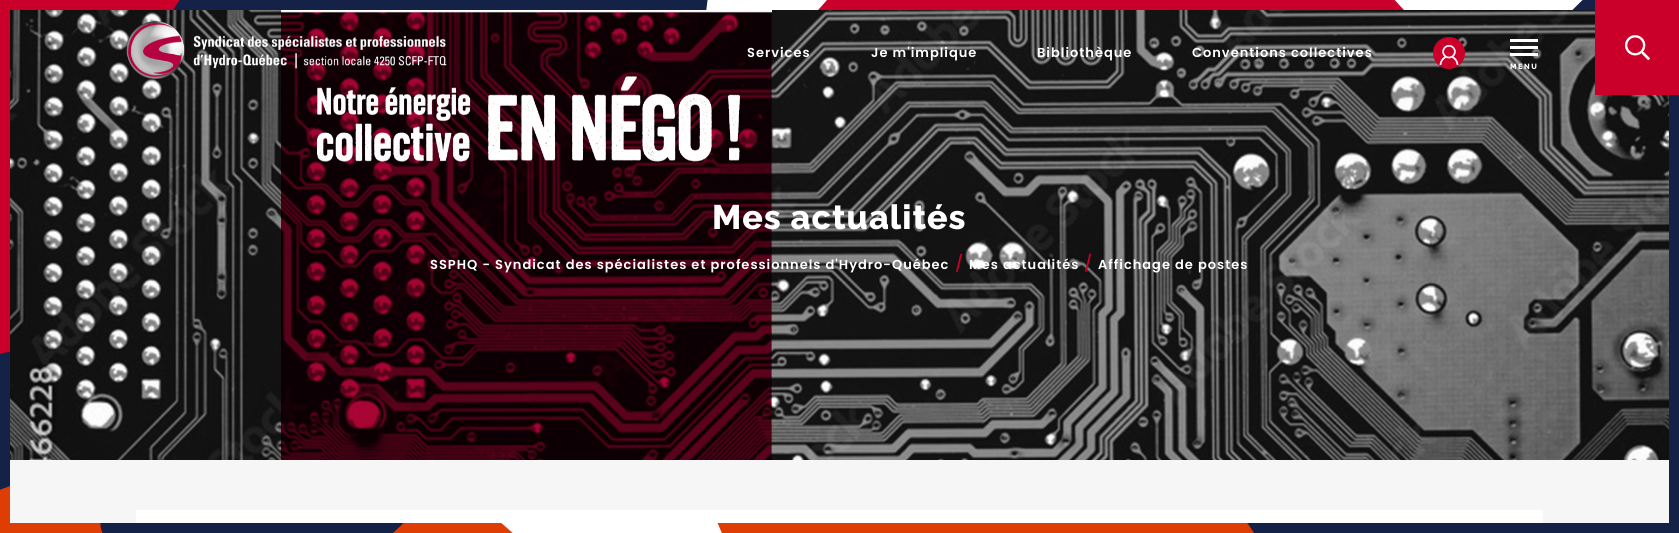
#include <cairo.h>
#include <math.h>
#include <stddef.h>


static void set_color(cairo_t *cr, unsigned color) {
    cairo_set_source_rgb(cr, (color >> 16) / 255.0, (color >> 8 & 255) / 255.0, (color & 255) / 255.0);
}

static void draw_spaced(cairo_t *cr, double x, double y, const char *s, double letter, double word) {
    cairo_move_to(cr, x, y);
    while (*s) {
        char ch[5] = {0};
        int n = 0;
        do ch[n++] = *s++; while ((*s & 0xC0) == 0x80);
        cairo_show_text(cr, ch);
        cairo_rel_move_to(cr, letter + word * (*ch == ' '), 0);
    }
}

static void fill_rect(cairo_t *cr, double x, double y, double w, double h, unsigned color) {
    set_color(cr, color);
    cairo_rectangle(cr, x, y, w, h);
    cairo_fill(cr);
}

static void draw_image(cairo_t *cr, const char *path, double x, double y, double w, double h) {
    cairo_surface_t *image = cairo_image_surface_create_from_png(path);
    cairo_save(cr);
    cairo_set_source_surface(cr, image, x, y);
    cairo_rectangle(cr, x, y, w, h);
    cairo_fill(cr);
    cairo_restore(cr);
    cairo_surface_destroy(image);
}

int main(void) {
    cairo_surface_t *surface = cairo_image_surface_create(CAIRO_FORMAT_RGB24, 1679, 533);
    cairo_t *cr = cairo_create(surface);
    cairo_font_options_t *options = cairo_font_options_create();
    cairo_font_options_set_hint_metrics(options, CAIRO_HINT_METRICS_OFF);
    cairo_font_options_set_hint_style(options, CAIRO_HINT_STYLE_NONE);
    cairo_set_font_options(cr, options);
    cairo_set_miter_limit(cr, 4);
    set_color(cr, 0xFFFFFF);
    cairo_paint(cr);
    set_color(cr, 0xCA002B);
    cairo_new_path(cr);
    cairo_move_to(cr, -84, 228);
    cairo_curve_to(cr, 17, 260, 254, 329, 305, 525);
    cairo_curve_to(cr, 311, 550, 330, 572, 351, 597);
    cairo_curve_to(cr, 390, 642, 435, 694, 424, 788);
    cairo_curve_to(cr, 415, 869, 385, 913, 349, 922);
    cairo_line_to(cr, 331, 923);
    cairo_curve_to(cr, 308, 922, 283, 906, 261, 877);
    cairo_curve_to(cr, 226, 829, 175, 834, 136, 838);
    cairo_line_to(cr, 112, 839);
    cairo_curve_to(cr, 67, 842, -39, 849, -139, 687);
    cairo_curve_to(cr, -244, 516, -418, 523, -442, 439);
    cairo_line_to(cr, -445, 427);
    cairo_line_to(cr, -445, 418);
    cairo_curve_to(cr, -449, 335, -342, 233, -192, 216);
    cairo_curve_to(cr, -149, 212, -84, 228, -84, 228);
    cairo_close_path(cr);
    cairo_fill(cr);
    draw_image(cr, "assets/img1.png", 0, 0, 180, 338);
    set_color(cr, 0x142247);
    cairo_new_path(cr);
    cairo_move_to(cr, -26, 360);
    cairo_curve_to(cr, 10, 351, 61, 339, 108, 345);
    cairo_line_to(cr, 126, 348);
    cairo_curve_to(cr, 153, 354, 178, 368, 196, 394);
    cairo_curve_to(cr, 260, 487, 277, 418, 341, 526);
    cairo_curve_to(cr, 355, 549, 382, 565, 410, 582);
    cairo_curve_to(cr, 456, 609, 504, 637, 491, 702);
    cairo_curve_to(cr, 471, 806, 361, 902, 278, 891);
    cairo_curve_to(cr, 244, 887, 219, 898, 196, 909);
    cairo_curve_to(cr, 162, 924, 134, 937, 90, 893);
    cairo_curve_to(cr, 16, 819, 12, 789, -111, 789);
    cairo_curve_to(cr, -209, 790, -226, 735, -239, 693);
    cairo_curve_to(cr, -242, 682, -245, 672, -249, 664);
    cairo_curve_to(cr, -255, 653, -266, 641, -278, 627);
    cairo_curve_to(cr, -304, 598, -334, 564, -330, 527);
    cairo_line_to(cr, -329, 519);
    cairo_curve_to(cr, -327, 512, -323, 504, -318, 496);
    cairo_curve_to(cr, -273, 429, -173, 413, -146, 388);
    cairo_curve_to(cr, -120, 363, -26, 360, -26, 360);
    cairo_close_path(cr);
    cairo_fill(cr);
    set_color(cr, 0xDE3D04);
    cairo_new_path(cr);
    cairo_move_to(cr, -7, 493);
    cairo_curve_to(cr, 72, 454, 173, 505, 211, 501);
    cairo_curve_to(cr, 248, 497, 287, 405, 383, 449);
    cairo_curve_to(cr, 479, 492, 533, 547, 595, 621);
    cairo_curve_to(cr, 658, 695, 768, 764, 731, 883);
    cairo_curve_to(cr, 694, 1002, 567, 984, 556, 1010);
    cairo_curve_to(cr, 544, 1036, 459, 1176, 405, 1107);
    cairo_curve_to(cr, 351, 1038, 305, 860, 120, 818);
    cairo_curve_to(cr, -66, 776, -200, 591, -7, 493);
    cairo_close_path(cr);
    cairo_fill(cr);
    set_color(cr, 0x142247);
    cairo_new_path(cr);
    cairo_move_to(cr, 177, 4);
    cairo_curve_to(cr, 222, -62, 278, -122, 317, -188);
    cairo_curve_to(cr, 351, -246, 351, -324, 420, -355);
    cairo_line_to(cr, 438, -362);
    cairo_curve_to(cr, 473, -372, 510, -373, 547, -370);
    cairo_curve_to(cr, 617, -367, 658, -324, 688, -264);
    cairo_line_to(cr, 692, -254);
    cairo_line_to(cr, 700, -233);
    cairo_curve_to(cr, 737, -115, 698, 79, 673, 190);
    cairo_curve_to(cr, 640, 336, 505, 367, 433, 486);
    cairo_curve_to(cr, 410, 523, 376, 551, 337, 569);
    cairo_line_to(cr, 299, 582);
    cairo_curve_to(cr, 246, 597, 188, 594, 138, 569);
    cairo_curve_to(cr, 127, 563, 116, 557, 109, 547);
    cairo_line_to(cr, 106, 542);
    cairo_line_to(cr, 101, 529);
    cairo_curve_to(cr, 97, 506, 110, 480, 123, 454);
    cairo_curve_to(cr, 129, 441, 136, 429, 140, 416);
    cairo_curve_to(cr, 155, 371, 141, 324, 127, 277);
    cairo_curve_to(cr, 116, 242, 106, 206, 107, 171);
    cairo_curve_to(cr, 109, 126, 131, 84, 153, 44);
    cairo_curve_to(cr, 160, 31, 169, 17, 177, 4);
    cairo_close_path(cr);
    cairo_fill(cr);
    draw_image(cr, "assets/img3.png", 717, 523, 517, 10);
    set_color(cr, 0xDE3D04);
    cairo_new_path(cr);
    cairo_move_to(cr, 1055, 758);
    cairo_curve_to(cr, 1113, 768, 1291, 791, 1406, 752);
    cairo_curve_to(cr, 1522, 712, 1464, 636, 1371, 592);
    cairo_curve_to(cr, 1279, 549, 927, 425, 921, 297);
    cairo_curve_to(cr, 915, 169, 1087, 58, 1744, 134);
    cairo_curve_to(cr, 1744, 134, 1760, 201, 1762, 239);
    cairo_line_to(cr, 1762, 254);
    cairo_curve_to(cr, 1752, 253, 1448, 213, 1328, 239);
    cairo_curve_to(cr, 1229, 260, 1228, 330, 1297, 369);
    cairo_curve_to(cr, 1366, 409, 1632, 502, 1660, 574);
    cairo_curve_to(cr, 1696, 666, 1556, 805, 1311, 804);
    cairo_line_to(cr, 1269, 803);
    cairo_curve_to(cr, 1204, 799, 1132, 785, 1055, 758);
    cairo_close_path(cr);
    cairo_fill(cr);
    set_color(cr, 0x142247);
    cairo_new_path(cr);
    cairo_move_to(cr, 1651, -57);
    cairo_curve_to(cr, 1669, -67, 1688, -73, 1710, -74);
    cairo_curve_to(cr, 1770, -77, 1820, -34, 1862, 9);
    cairo_curve_to(cr, 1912, 60, 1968, 103, 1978, 174);
    cairo_curve_to(cr, 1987, 241, 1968, 324, 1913, 366);
    cairo_curve_to(cr, 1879, 393, 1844, 401, 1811, 433);
    cairo_curve_to(cr, 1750, 492, 1664, 531, 1614, 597);
    cairo_curve_to(cr, 1606, 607, 1599, 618, 1591, 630);
    cairo_curve_to(cr, 1551, 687, 1507, 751, 1429, 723);
    cairo_curve_to(cr, 1368, 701, 1316, 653, 1289, 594);
    cairo_curve_to(cr, 1274, 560, 1250, 526, 1225, 492);
    cairo_curve_to(cr, 1183, 433, 1141, 373, 1142, 311);
    cairo_line_to(cr, 1149, 270);
    cairo_curve_to(cr, 1157, 247, 1172, 223, 1197, 199);
    cairo_curve_to(cr, 1279, 121, 1415, 131, 1508, 66);
    cairo_curve_to(cr, 1560, 31, 1600, -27, 1651, -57);
    cairo_close_path(cr);
    cairo_fill(cr);
    draw_image(cr, "assets/img2.png", 818, 0, 586, 10);
    draw_image(cr, "assets/img7.png", 10, 10, 1659, 450);
    draw_image(cr, "assets/img4.png", 126, 21, 321, 58);
    cairo_select_font_face(cr, "Poppins SemiBold", CAIRO_FONT_SLANT_NORMAL, CAIRO_FONT_WEIGHT_NORMAL);
    cairo_set_font_size(cr, 13);
    set_color(cr, 0xFFFFFF);
    draw_spaced(cr, 747, 57, "Services", 1, 0);
    draw_spaced(cr, 871, 57, "Je m'implique", 1, 0);
    draw_spaced(cr, 1037, 57, "Bibliothèque", 1, 0);
    draw_spaced(cr, 1192, 57, "Conventions collectives", 1, 0);
    set_color(cr, 0xCA002B);
    cairo_new_path(cr);
    cairo_arc(cr, 1449, 53, 16, 0, 2 * M_PI);
    cairo_fill(cr);
    draw_image(cr, "assets/img5.png", 1439, 45, 20, 20);
    fill_rect(cr, 1510, 39, 28, 3, 0xFFFFFF);
    fill_rect(cr, 1510, 46, 28, 3, 0xFFFFFF);
    fill_rect(cr, 1510, 53, 28, 3, 0xFFFFFF);
    cairo_select_font_face(cr, "Raleway Thin", CAIRO_FONT_SLANT_NORMAL, CAIRO_FONT_WEIGHT_NORMAL);
    cairo_set_font_size(cr, 7.5);
    draw_spaced(cr, 1510, 69, "MENU", 1.5, 0);
    fill_rect(cr, 1595, 0, 84, 95, 0xCA002B);
    draw_image(cr, "assets/img6.png", 1625, 35, 25, 26);
    fill_rect(cr, 10, 460, 1659, 63, 0xF6F6F6);
    cairo_set_font_size(cr, 34);
    set_color(cr, 0xFFFFFF);
    draw_spaced(cr, 712, 229, "Mes actualités", 1, 0);
    cairo_select_font_face(cr, "Poppins SemiBold", CAIRO_FONT_SLANT_NORMAL, CAIRO_FONT_WEIGHT_NORMAL);
    cairo_set_font_size(cr, 13);
    draw_spaced(cr, 430, 269, "SSPHQ - Syndicat des spécialistes et professionnels d'Hydro-Québec", 1, 0);
    cairo_select_font_face(cr, "Poppins Medium", CAIRO_FONT_SLANT_NORMAL, CAIRO_FONT_WEIGHT_NORMAL);
    cairo_set_font_size(cr, 16);
    set_color(cr, 0xCA002B);
    draw_spaced(cr, 955, 269, "/", 1, 0);
    cairo_select_font_face(cr, "Poppins SemiBold", CAIRO_FONT_SLANT_NORMAL, CAIRO_FONT_WEIGHT_NORMAL);
    cairo_set_font_size(cr, 13);
    set_color(cr, 0xFFFFFF);
    draw_spaced(cr, 969, 269, "Mes actualités", 1, 0);
    cairo_select_font_face(cr, "Poppins Medium", CAIRO_FONT_SLANT_NORMAL, CAIRO_FONT_WEIGHT_NORMAL);
    cairo_set_font_size(cr, 16);
    set_color(cr, 0xCA002B);
    draw_spaced(cr, 1084, 269, "/", 1, 0);
    cairo_select_font_face(cr, "Poppins SemiBold", CAIRO_FONT_SLANT_NORMAL, CAIRO_FONT_WEIGHT_NORMAL);
    cairo_set_font_size(cr, 13);
    set_color(cr, 0xFFFFFF);
    draw_spaced(cr, 1098, 269, "Affichage de postes", 1, 0);
    fill_rect(cr, 136, 510, 1407, 13, 0xFFFFFF);
    cairo_surface_write_to_png(surface, "output.png");
    cairo_font_options_destroy(options);
    cairo_destroy(cr);
    cairo_surface_destroy(surface);
    return 0;
}
